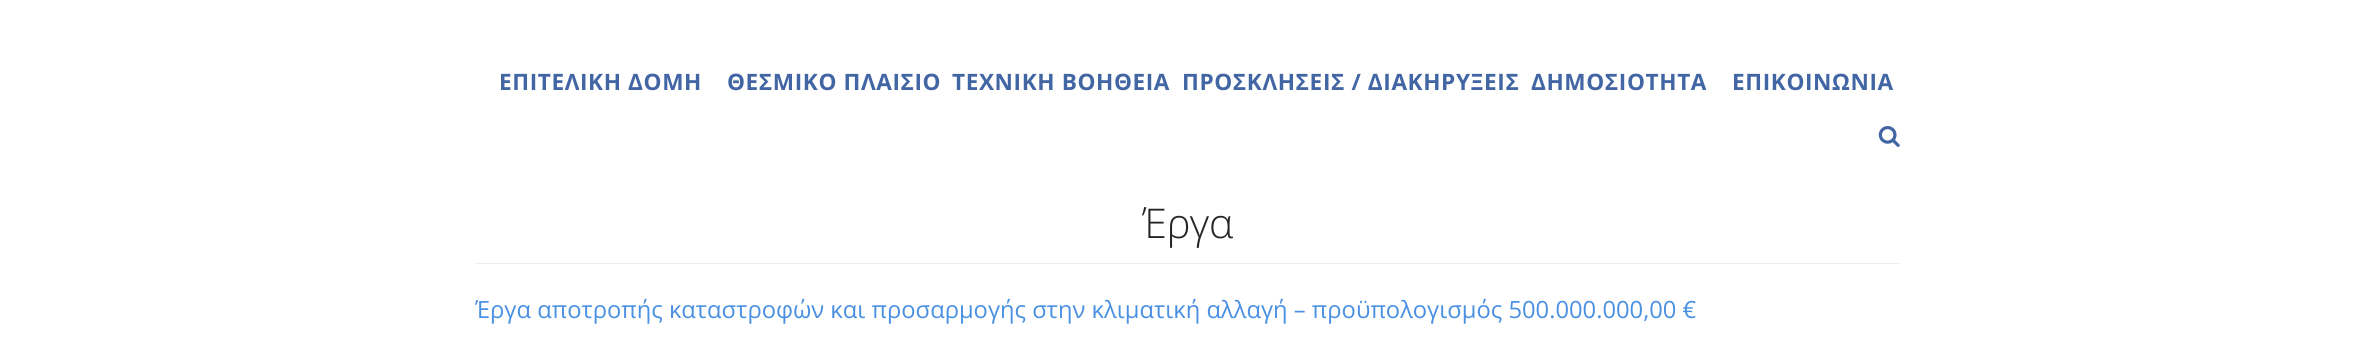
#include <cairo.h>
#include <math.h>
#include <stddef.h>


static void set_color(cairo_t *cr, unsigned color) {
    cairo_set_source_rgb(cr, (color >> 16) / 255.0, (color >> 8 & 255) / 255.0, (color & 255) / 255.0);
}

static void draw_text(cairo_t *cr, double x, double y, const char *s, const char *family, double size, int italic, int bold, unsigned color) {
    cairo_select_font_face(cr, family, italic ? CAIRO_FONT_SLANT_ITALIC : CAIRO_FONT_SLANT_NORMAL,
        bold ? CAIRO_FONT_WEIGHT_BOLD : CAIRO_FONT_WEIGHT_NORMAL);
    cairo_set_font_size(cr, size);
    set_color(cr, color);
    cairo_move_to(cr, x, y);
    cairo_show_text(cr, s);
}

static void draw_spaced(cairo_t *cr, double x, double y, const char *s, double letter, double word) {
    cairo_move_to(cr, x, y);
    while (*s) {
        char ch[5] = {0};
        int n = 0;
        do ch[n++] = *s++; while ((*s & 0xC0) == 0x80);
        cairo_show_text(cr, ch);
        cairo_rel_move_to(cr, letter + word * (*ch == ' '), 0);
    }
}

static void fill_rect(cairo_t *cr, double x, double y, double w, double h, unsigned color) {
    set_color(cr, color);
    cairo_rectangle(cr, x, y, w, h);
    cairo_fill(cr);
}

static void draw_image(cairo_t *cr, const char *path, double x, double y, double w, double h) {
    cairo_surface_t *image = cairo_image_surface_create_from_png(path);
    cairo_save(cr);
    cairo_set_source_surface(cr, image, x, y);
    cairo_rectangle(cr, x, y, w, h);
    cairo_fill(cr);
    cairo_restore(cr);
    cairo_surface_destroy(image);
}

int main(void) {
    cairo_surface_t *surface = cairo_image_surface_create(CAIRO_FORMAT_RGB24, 2375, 346);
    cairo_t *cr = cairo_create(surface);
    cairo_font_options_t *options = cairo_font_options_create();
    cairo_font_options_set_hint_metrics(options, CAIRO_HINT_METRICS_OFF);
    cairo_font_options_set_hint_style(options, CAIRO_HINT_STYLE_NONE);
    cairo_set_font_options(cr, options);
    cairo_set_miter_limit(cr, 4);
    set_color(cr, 0xFFFFFF);
    cairo_paint(cr);
    cairo_select_font_face(cr, "Open Sans", CAIRO_FONT_SLANT_NORMAL, CAIRO_FONT_WEIGHT_BOLD);
    cairo_set_font_size(cr, 22.6);
    set_color(cr, 0x4265A3);
    draw_spaced(cr, 499, 90, "ΕΠΙΤΕΛΙΚΗ ΔΟΜΗ", 0.6, 0);
    draw_spaced(cr, 727, 90, "ΘΕΣΜΙΚΟ ΠΛΑΙΣΙΟ", 0.6, 0);
    draw_spaced(cr, 952, 90, "ΤΕΧΝΙΚΗ ΒΟΗΘΕΙΑ", 0.6, 0);
    draw_spaced(cr, 1182, 90, "ΠΡΟΣΚΛΗΣΕΙΣ / ΔΙΑΚΗΡΥΞΕΙΣ", 0.6, 0);
    draw_spaced(cr, 1531, 90, "ΔΗΜΟΣΙΟΤΗΤΑ", 0.6, 0);
    draw_spaced(cr, 1732, 90, "ΕΠΙΚΟΙΝΩΝΙΑ", 0.6, 0);
    draw_image(cr, "assets/img1.png", 1878, 126, 22, 21);
    fill_rect(cr, 475, 263, 1425, 1, 0xEEEEEE);
    cairo_select_font_face(cr, "Open Sans Light", CAIRO_FONT_SLANT_NORMAL, CAIRO_FONT_WEIGHT_NORMAL);
    cairo_set_font_size(cr, 41);
    set_color(cr, 0x252525);
    draw_spaced(cr, 1142, 238, "Έργα", -0.5, 0);
    draw_text(cr, 475, 318, "Έργα αποτροπής καταστροφών και προσαρμογής στην κλιματική αλλαγή – προϋπολογισμός 500.000.000,00 €", "Open Sans", 23.75, 0, 0, 0x4A90E2);
    cairo_surface_write_to_png(surface, "output.png");
    cairo_font_options_destroy(options);
    cairo_destroy(cr);
    cairo_surface_destroy(surface);
    return 0;
}
